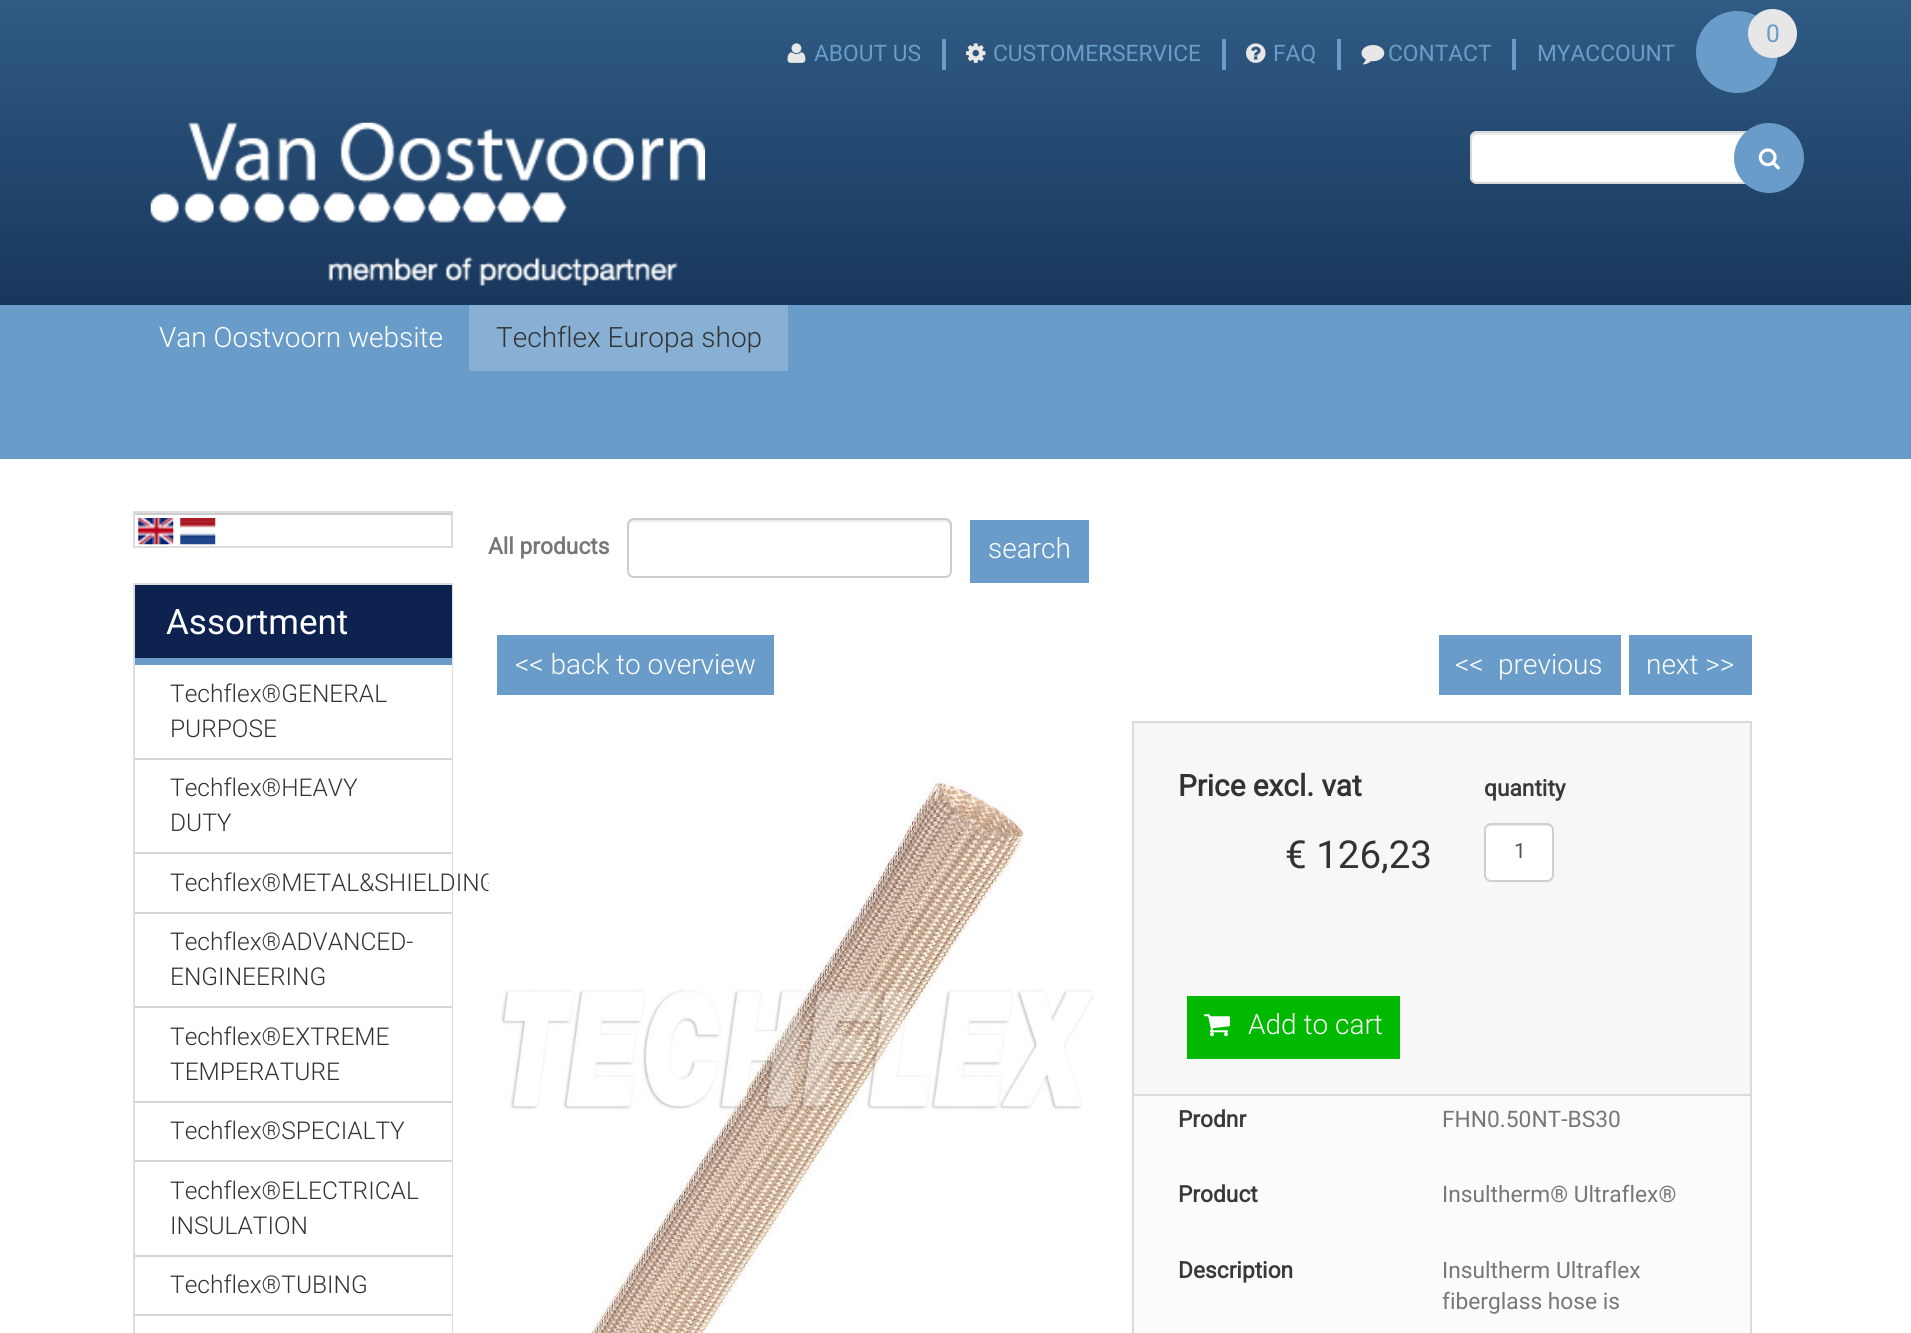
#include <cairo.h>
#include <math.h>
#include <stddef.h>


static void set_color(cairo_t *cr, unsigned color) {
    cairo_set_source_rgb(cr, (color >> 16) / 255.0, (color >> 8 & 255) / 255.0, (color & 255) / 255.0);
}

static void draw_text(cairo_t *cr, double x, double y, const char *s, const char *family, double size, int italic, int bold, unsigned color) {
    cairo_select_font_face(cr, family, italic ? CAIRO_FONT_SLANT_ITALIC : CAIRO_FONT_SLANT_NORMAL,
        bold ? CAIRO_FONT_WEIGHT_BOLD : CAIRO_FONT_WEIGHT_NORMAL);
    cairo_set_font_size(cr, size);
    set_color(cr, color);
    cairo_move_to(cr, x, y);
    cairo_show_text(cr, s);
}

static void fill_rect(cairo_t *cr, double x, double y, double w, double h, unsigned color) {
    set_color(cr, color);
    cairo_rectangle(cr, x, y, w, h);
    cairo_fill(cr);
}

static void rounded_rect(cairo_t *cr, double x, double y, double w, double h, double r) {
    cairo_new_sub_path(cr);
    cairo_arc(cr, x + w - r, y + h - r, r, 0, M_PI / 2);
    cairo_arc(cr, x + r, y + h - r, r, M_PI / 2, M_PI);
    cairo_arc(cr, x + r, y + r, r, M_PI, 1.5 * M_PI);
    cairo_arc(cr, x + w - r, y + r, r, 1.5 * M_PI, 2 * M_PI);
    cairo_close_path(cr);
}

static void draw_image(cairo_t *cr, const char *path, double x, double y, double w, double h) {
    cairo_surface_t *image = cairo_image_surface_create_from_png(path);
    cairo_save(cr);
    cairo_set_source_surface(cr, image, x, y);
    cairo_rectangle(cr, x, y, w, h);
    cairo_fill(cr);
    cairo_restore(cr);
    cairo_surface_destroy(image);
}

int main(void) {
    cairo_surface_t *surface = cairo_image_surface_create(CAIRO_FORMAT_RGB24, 1911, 1333);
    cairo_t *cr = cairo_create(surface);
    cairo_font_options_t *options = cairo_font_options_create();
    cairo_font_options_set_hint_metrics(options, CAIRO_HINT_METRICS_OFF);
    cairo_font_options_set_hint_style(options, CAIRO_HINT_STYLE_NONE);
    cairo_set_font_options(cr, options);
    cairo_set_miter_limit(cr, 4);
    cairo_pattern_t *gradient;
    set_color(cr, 0xFFFFFF);
    cairo_paint(cr);
    gradient = cairo_pattern_create_linear(956, 0, 956, 459);
    cairo_pattern_add_color_stop_rgba(gradient, 0, 0.188, 0.357, 0.522, 1);
    cairo_pattern_add_color_stop_rgba(gradient, 1, 0.047, 0.141, 0.275, 1);
    cairo_set_source(cr, gradient);
    cairo_pattern_destroy(gradient);
    cairo_rectangle(cr, 0, 0, 1911, 305);
    cairo_fill(cr);
    set_color(cr, 0x699CC9);
    cairo_arc(cr, 1737, 52, 41, 0, 2 * M_PI);
    cairo_fill(cr);
    set_color(cr, 0xE8E7E7);
    cairo_arc(cr, 1772.5, 33.5, 24.5, 0, 2 * M_PI);
    cairo_fill(cr);
    draw_text(cr, 1766, 42, "0", "Roboto", 24.5, 0, 0, 0x699CC9);
    fill_rect(cr, 942, 39, 4, 31, 0x699CC9);
    draw_image(cr, "assets/img1.png", 787, 43, 19, 20);
    draw_text(cr, 814, 61, "ABOUT US", "Roboto", 22.75, 0, 0, 0x699CC9);
    fill_rect(cr, 1222, 39, 4, 31, 0x699CC9);
    draw_image(cr, "assets/img2.png", 966, 43, 20, 20);
    draw_text(cr, 993, 61, "CUSTOMERSERVICE", "Roboto", 22.75, 0, 0, 0x699CC9);
    fill_rect(cr, 1337, 39, 4, 31, 0x699CC9);
    draw_image(cr, "assets/img3.png", 1246, 43, 20, 20);
    draw_text(cr, 1273, 61, "FAQ", "Roboto", 22.75, 0, 0, 0x699CC9);
    fill_rect(cr, 1512, 39, 4, 31, 0x699CC9);
    draw_image(cr, "assets/img4.png", 1361, 45, 24, 20);
    draw_text(cr, 1388, 61, "CONTACT", "Roboto", 22.75, 0, 0, 0x699CC9);
    draw_text(cr, 1537, 61, "MYACCOUNT", "Roboto", 22.75, 0, 0, 0x699CC9);
    draw_image(cr, "assets/img5.png", 150, 122, 556, 164);
    set_color(cr, 0xFFFFFF);
    rounded_rect(cr, 1470, 131, 322, 53, 7);
    cairo_fill(cr);
    set_color(cr, 0xECECEC);
    cairo_new_path(cr);
    cairo_move_to(cr, 1477, 135);
    cairo_line_to(cr, 1785, 135);
    cairo_curve_to(cr, 1788, 135, 1790, 137, 1790, 140);
    cairo_line_to(cr, 1790, 138);
    cairo_curve_to(cr, 1790, 135, 1788, 133, 1785, 133);
    cairo_line_to(cr, 1477, 133);
    cairo_curve_to(cr, 1474, 133, 1472, 135, 1472, 138);
    cairo_line_to(cr, 1472, 140);
    cairo_curve_to(cr, 1472, 137, 1474, 135, 1477, 135);
    cairo_close_path(cr);
    cairo_fill(cr);
    rounded_rect(cr, 1471, 132, 320, 51, 6);
    set_color(cr, 0xD9D9D9);
    cairo_stroke(cr);
    set_color(cr, 0x699CC9);
    cairo_arc(cr, 1769, 158, 35, 0, 2 * M_PI);
    cairo_fill(cr);
    draw_image(cr, "assets/img6.png", 1758, 148, 22, 22);
    fill_rect(cr, 0, 305, 1911, 154, 0x699CC9);
    draw_text(cr, 159, 347, "Van Oostvoorn website", "Roboto Light", 28, 0, 0, 0xFFFFFF);
    fill_rect(cr, 469, 305, 319, 66, 0x87B0D4);
    draw_text(cr, 496, 347, "Techflex Europa shop", "Roboto Light", 28, 0, 0, 0x333333);
    cairo_rectangle(cr, 134, 512, 318, 35);
    set_color(cr, 0xDDDDDD);
    cairo_stroke(cr);
    fill_rect(cr, 135, 513, 317, 2, 0xCCCCCC);
    draw_image(cr, "assets/img7.png", 138, 518, 36, 27);
    draw_image(cr, "assets/img8.png", 180, 518, 36, 27);
    cairo_rectangle(cr, 134, 584, 318, 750);
    set_color(cr, 0xDDDDDD);
    cairo_stroke(cr);
    fill_rect(cr, 135, 585, 317, 73, 0x0D224F);
    fill_rect(cr, 135, 658, 317, 7, 0x699CC9);
    draw_text(cr, 166, 634, "Assortment", "Roboto", 35, 0, 0, 0xFFFFFF);
    fill_rect(cr, 451, 665, 1, 93, 0xFFFFFF);
    fill_rect(cr, 135, 758, 317, 2, 0xD6D5D5);
    draw_text(cr, 170, 702, "Techflex®GENERAL", "Roboto Light", 24.5, 0, 0, 0x333333);
    draw_text(cr, 170, 737, "PURPOSE", "Roboto Light", 24.5, 0, 0, 0x333333);
    fill_rect(cr, 451, 760, 1, 92, 0xFFFFFF);
    fill_rect(cr, 135, 852, 317, 2, 0xD6D5D5);
    draw_text(cr, 170, 796, "Techflex®HEAVY", "Roboto Light", 24.5, 0, 0, 0x333333);
    draw_text(cr, 170, 831, "DUTY", "Roboto Light", 24.5, 0, 0, 0x333333);
    fill_rect(cr, 451, 854, 1, 58, 0xFFFFFF);
    fill_rect(cr, 135, 912, 317, 2, 0xD6D5D5);
    draw_text(cr, 170, 891, "Techflex®METAL&SHIELDING", "Roboto Light", 24.5, 0, 0, 0x333333);
    fill_rect(cr, 451, 914, 1, 92, 0xFFFFFF);
    fill_rect(cr, 135, 1006, 317, 2, 0xD6D5D5);
    draw_text(cr, 170, 950, "Techflex®ADVANCED-", "Roboto Light", 24.5, 0, 0, 0x333333);
    draw_text(cr, 170, 985, "ENGINEERING", "Roboto Light", 24.5, 0, 0, 0x333333);
    fill_rect(cr, 451, 1008, 1, 93, 0xFFFFFF);
    fill_rect(cr, 135, 1101, 317, 2, 0xD6D5D5);
    draw_text(cr, 170, 1045, "Techflex®EXTREME", "Roboto Light", 24.5, 0, 0, 0x333333);
    draw_text(cr, 170, 1080, "TEMPERATURE", "Roboto Light", 24.5, 0, 0, 0x333333);
    fill_rect(cr, 451, 1103, 1, 57, 0xFFFFFF);
    fill_rect(cr, 135, 1160, 317, 2, 0xD6D5D5);
    draw_text(cr, 170, 1139, "Techflex®SPECIALTY", "Roboto Light", 24.5, 0, 0, 0x333333);
    fill_rect(cr, 451, 1162, 1, 93, 0xFFFFFF);
    fill_rect(cr, 135, 1255, 317, 2, 0xD6D5D5);
    draw_text(cr, 170, 1199, "Techflex®ELECTRICAL", "Roboto Light", 24.5, 0, 0, 0x333333);
    draw_text(cr, 170, 1234, "INSULATION", "Roboto Light", 24.5, 0, 0, 0x333333);
    fill_rect(cr, 451, 1257, 1, 57, 0xFFFFFF);
    fill_rect(cr, 135, 1314, 317, 2, 0xD6D5D5);
    draw_text(cr, 170, 1293, "Techflex®TUBING", "Roboto Light", 24.5, 0, 0, 0x333333);
    fill_rect(cr, 451, 1316, 1, 17, 0xFFFFFF);
    draw_text(cr, 488, 554, "All products", "Roboto", 22.75, 0, 1, 0x777777);
    set_color(cr, 0xECECEC);
    cairo_new_path(cr);
    cairo_move_to(cr, 634, 522);
    cairo_line_to(cr, 945, 522);
    cairo_curve_to(cr, 948, 522, 950, 524, 950, 527);
    cairo_line_to(cr, 950, 525);
    cairo_curve_to(cr, 950, 522, 948, 520, 945, 520);
    cairo_line_to(cr, 633, 520);
    cairo_curve_to(cr, 630, 520, 628, 522, 628, 525);
    cairo_line_to(cr, 628, 527);
    cairo_curve_to(cr, 628, 524, 631, 522, 634, 522);
    cairo_close_path(cr);
    cairo_fill(cr);
    rounded_rect(cr, 628, 519, 323, 58, 6);
    set_color(cr, 0xCCCCCC);
    cairo_stroke(cr);
    fill_rect(cr, 970, 520, 119, 63, 0x699CC9);
    draw_text(cr, 988, 558, "search", "Roboto Light", 28, 0, 0, 0xFFFFFF);
    fill_rect(cr, 497, 635, 277, 60, 0x699CC9);
    draw_text(cr, 515, 674, "<< back to overview", "Roboto Light", 28, 0, 0, 0xFFFFFF);
    fill_rect(cr, 1439, 635, 182, 60, 0x699CC9);
    draw_text(cr, 1455, 674, "<<", "Roboto Light", 28, 0, 0, 0xFFFFFF);
    draw_text(cr, 1498, 674, "previous", "Roboto Light", 28, 0, 0, 0xFFFFFF);
    fill_rect(cr, 1629, 635, 123, 60, 0x699CC9);
    draw_text(cr, 1646, 674, "next >>", "Roboto Light", 28, 0, 0, 0xFFFFFF);
    draw_image(cr, "assets/img9.png", 488, 778, 607, 555);
    fill_rect(cr, 1134, 1096, 616, 237, 0xFBFBFB);
    cairo_rectangle(cr, 1133, 722, 618, 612);
    set_color(cr, 0xDBDBDB);
    cairo_stroke(cr);
    fill_rect(cr, 1134, 723, 616, 371, 0xF7F7F7);
    fill_rect(cr, 1134, 1094, 616, 2, 0xDBDBDB);
    draw_text(cr, 1178, 796, "Price excl. vat", "Roboto", 29.75, 0, 1, 0x333333);
    draw_text(cr, 1285, 868, "€ 126,23", "Roboto", 38.5, 0, 0, 0x333333);
    draw_text(cr, 1484, 796, "quantity", "Roboto", 22.75, 0, 1, 0x393939);
    set_color(cr, 0xFFFFFF);
    rounded_rect(cr, 1484, 823, 70, 59, 7);
    cairo_fill(cr);
    set_color(cr, 0xECECEC);
    cairo_new_path(cr);
    cairo_move_to(cr, 1491, 826);
    cairo_line_to(cr, 1547, 826);
    cairo_curve_to(cr, 1550, 826, 1552, 828, 1552, 831);
    cairo_curve_to(cr, 1552, 822, 1545, 824, 1538, 824);
    cairo_line_to(cr, 1500, 824);
    cairo_curve_to(cr, 1493, 824, 1486, 822, 1486, 831);
    cairo_curve_to(cr, 1486, 828, 1488, 826, 1491, 826);
    cairo_close_path(cr);
    cairo_fill(cr);
    rounded_rect(cr, 1485, 824, 68, 57, 6);
    set_color(cr, 0xCFCFCF);
    cairo_stroke(cr);
    draw_text(cr, 1514, 858, "1", "Roboto", 21, 0, 0, 0x555555);
    fill_rect(cr, 1187, 996, 213, 63, 0x00B900);
    draw_image(cr, "assets/img10.png", 1204, 1014, 26, 23);
    draw_text(cr, 1248, 1034, "Add to cart", "Roboto Light", 28, 0, 0, 0xFFFFFF);
    draw_text(cr, 1178, 1127, "Prodnr", "Roboto", 22.75, 0, 1, 0x393939);
    draw_text(cr, 1442, 1127, "FHN0.50NT-BS30", "Roboto", 22.75, 0, 0, 0x777777);
    draw_text(cr, 1178, 1202, "Product", "Roboto", 22.75, 0, 1, 0x393939);
    draw_text(cr, 1442, 1202, "Insultherm® Ultraflex®", "Roboto", 22.75, 0, 0, 0x777777);
    draw_text(cr, 1178, 1278, "Description", "Roboto", 22.75, 0, 1, 0x393939);
    draw_text(cr, 1442, 1278, "Insultherm Ultraflex", "Roboto", 22.75, 0, 0, 0x777777);
    draw_text(cr, 1442, 1309, "fiberglass hose is", "Roboto", 22.75, 0, 0, 0x777777);
    cairo_surface_write_to_png(surface, "output.png");
    cairo_font_options_destroy(options);
    cairo_destroy(cr);
    cairo_surface_destroy(surface);
    return 0;
}
